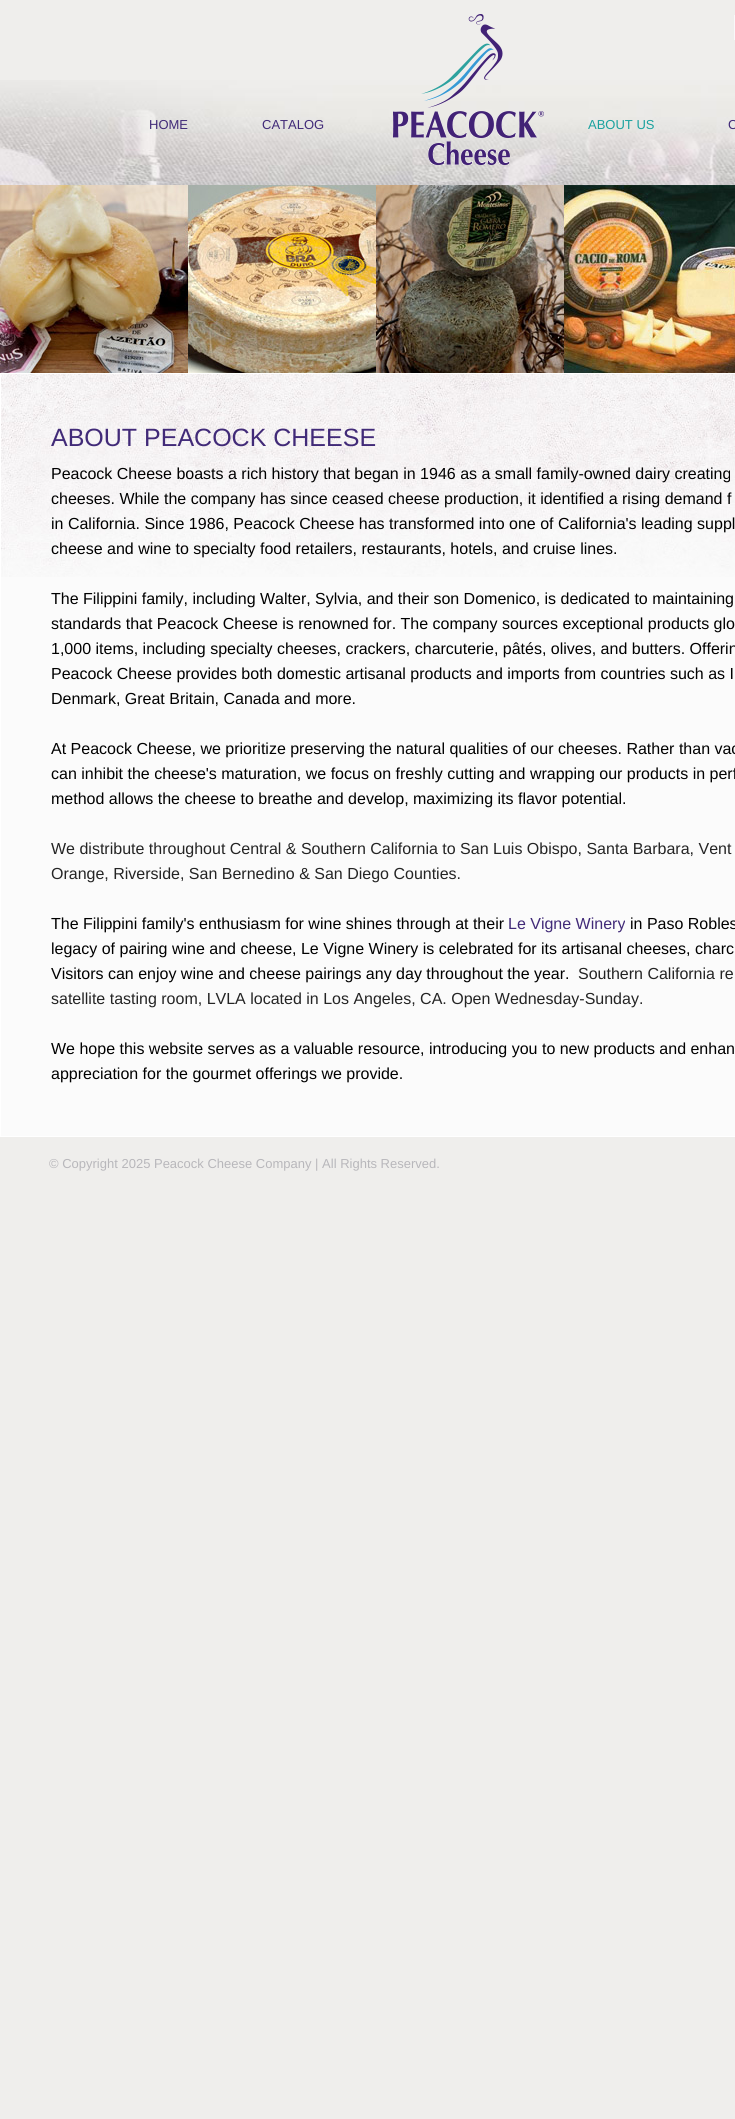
#include <cairo.h>
#include <math.h>
#include <stddef.h>


static void set_color(cairo_t *cr, unsigned color) {
    cairo_set_source_rgb(cr, (color >> 16) / 255.0, (color >> 8 & 255) / 255.0, (color & 255) / 255.0);
}

static void draw_text(cairo_t *cr, double x, double y, const char *s, const char *family, double size, int italic, int bold, unsigned color) {
    cairo_select_font_face(cr, family, italic ? CAIRO_FONT_SLANT_ITALIC : CAIRO_FONT_SLANT_NORMAL,
        bold ? CAIRO_FONT_WEIGHT_BOLD : CAIRO_FONT_WEIGHT_NORMAL);
    cairo_set_font_size(cr, size);
    set_color(cr, color);
    cairo_move_to(cr, x, y);
    cairo_show_text(cr, s);
}

static void fill_rect(cairo_t *cr, double x, double y, double w, double h, unsigned color) {
    set_color(cr, color);
    cairo_rectangle(cr, x, y, w, h);
    cairo_fill(cr);
}

static void draw_image(cairo_t *cr, const char *path, double x, double y, double w, double h) {
    cairo_surface_t *image = cairo_image_surface_create_from_png(path);
    cairo_save(cr);
    cairo_set_source_surface(cr, image, x, y);
    cairo_rectangle(cr, x, y, w, h);
    cairo_fill(cr);
    cairo_restore(cr);
    cairo_surface_destroy(image);
}

int main(void) {
    cairo_surface_t *surface = cairo_image_surface_create(CAIRO_FORMAT_RGB24, 735, 2119);
    cairo_t *cr = cairo_create(surface);
    cairo_font_options_t *options = cairo_font_options_create();
    cairo_font_options_set_hint_metrics(options, CAIRO_HINT_METRICS_OFF);
    cairo_font_options_set_hint_style(options, CAIRO_HINT_STYLE_NONE);
    cairo_set_font_options(cr, options);
    cairo_set_miter_limit(cr, 4);
    set_color(cr, 0xEFEEEC);
    cairo_paint(cr);
    draw_image(cr, "assets/img1.png", 0, 80, 735, 105);
    draw_image(cr, "assets/img2.png", 393, 14, 151, 151);
    fill_rect(cr, 734, 15, 1, 25, 0xF9F8F9);
    draw_text(cr, 149, 129, "HOME", "Liberation Sans", 13, 0, 0, 0x412A78);
    draw_text(cr, 262, 129, "CATALOG", "Liberation Sans", 13, 0, 0, 0x412A78);
    draw_text(cr, 588, 129, "ABOUT US", "Liberation Sans", 13, 0, 0, 0x1AA29F);
    draw_text(cr, 728, 129, "C", "Liberation Sans", 13, 0, 0, 0x412A78);
    draw_image(cr, "assets/img3.png", 0, 185, 735, 188);
    fill_rect(cr, 1, 577, 734, 559, 0xFBFBFB);
    draw_image(cr, "assets/img4.png", 1, 374, 734, 203);
    cairo_rectangle(cr, 0.5, 373.5, 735, 763);
    set_color(cr, 0xFFFFFF);
    cairo_set_line_width(cr, 1);
    cairo_stroke(cr);
    draw_text(cr, 51, 446, "ABOUT PEACOCK CHEESE", "Liberation Sans", 25, 0, 0, 0x412A78);
    draw_text(cr, 51, 479, "Peacock Cheese boasts a rich history that began in 1946 as a small family-owned dairy creating", "Liberation Sans", 16, 0, 0, 0x000000);
    draw_text(cr, 51, 504, "cheeses. While the company has since ceased cheese production, it identified a rising demand f", "Liberation Sans", 16, 0, 0, 0x000000);
    draw_text(cr, 51, 529, "in California. Since 1986, Peacock Cheese has transformed into one of California's leading suppl", "Liberation Sans", 16, 0, 0, 0x000000);
    draw_text(cr, 51, 554, "cheese and wine to specialty food retailers, restaurants, hotels, and cruise lines.", "Liberation Sans", 16, 0, 0, 0x000000);
    draw_text(cr, 51, 604, "The Filippini family, including Walter, Sylvia, and their son Domenico, is dedicated to maintaining", "Liberation Sans", 16, 0, 0, 0x000000);
    draw_text(cr, 51, 629, "standards that Peacock Cheese is renowned for. The company sources exceptional products glo", "Liberation Sans", 16, 0, 0, 0x000000);
    draw_text(cr, 51, 654, "1,000 items, including specialty cheeses, crackers, charcuterie, pâtés, olives, and butters. Offerin", "Liberation Sans", 16, 0, 0, 0x000000);
    draw_text(cr, 51, 679, "Peacock Cheese provides both domestic artisanal products and imports from countries such as I", "Liberation Sans", 16, 0, 0, 0x000000);
    draw_text(cr, 51, 704, "Denmark, Great Britain, Canada and more.", "Liberation Sans", 16, 0, 0, 0x000000);
    draw_text(cr, 51, 754, "At Peacock Cheese, we prioritize preserving the natural qualities of our cheeses. Rather than vac", "Liberation Sans", 16, 0, 0, 0x000000);
    draw_text(cr, 51, 779, "can inhibit the cheese's maturation, we focus on freshly cutting and wrapping our products in perf", "Liberation Sans", 16, 0, 0, 0x000000);
    draw_text(cr, 51, 804, "method allows the cheese to breathe and develop, maximizing its flavor potential.", "Liberation Sans", 16, 0, 0, 0x000000);
    draw_text(cr, 51, 854, "We distribute throughout Central & Southern California to San Luis Obispo, Santa Barbara, Vent", "Liberation Sans", 16, 0, 0, 0x242424);
    draw_text(cr, 51, 879, "Orange, Riverside, San Bernedino & San Diego Counties.", "Liberation Sans", 16, 0, 0, 0x242424);
    draw_text(cr, 51, 929, "The Filippini family's enthusiasm for wine shines through at their", "Liberation Sans", 16, 0, 0, 0x000000);
    draw_text(cr, 508, 929, "Le Vigne Winery", "Liberation Sans", 16, 0, 0, 0x412A78);
    draw_text(cr, 630, 929, "in Paso Robles", "Liberation Sans", 16, 0, 0, 0x000000);
    draw_text(cr, 51, 954, "legacy of pairing wine and cheese, Le Vigne Winery is celebrated for its artisanal cheeses, charc", "Liberation Sans", 16, 0, 0, 0x000000);
    draw_text(cr, 51, 979, "Visitors can enjoy wine and cheese pairings any day throughout the year.", "Liberation Sans", 16, 0, 0, 0x000000);
    draw_text(cr, 578, 979, "Southern California re", "Liberation Sans", 16, 0, 0, 0x242424);
    draw_text(cr, 51, 1004, "satellite tasting room, LVLA located in Los Angeles, CA. Open Wednesday-Sunday.", "Liberation Sans", 16, 0, 0, 0x242424);
    draw_text(cr, 51, 1054, "We hope this website serves as a valuable resource, introducing you to new products and enhan", "Liberation Sans", 16, 0, 0, 0x000000);
    draw_text(cr, 51, 1079, "appreciation for the gourmet offerings we provide.", "Liberation Sans", 16, 0, 0, 0x000000);
    draw_text(cr, 49, 1168, "© Copyright 2025 Peacock Cheese Company | All Rights Reserved.", "Liberation Sans", 13, 0, 0, 0xB8B7BB);
    cairo_surface_write_to_png(surface, "output.png");
    cairo_font_options_destroy(options);
    cairo_destroy(cr);
    cairo_surface_destroy(surface);
    return 0;
}
